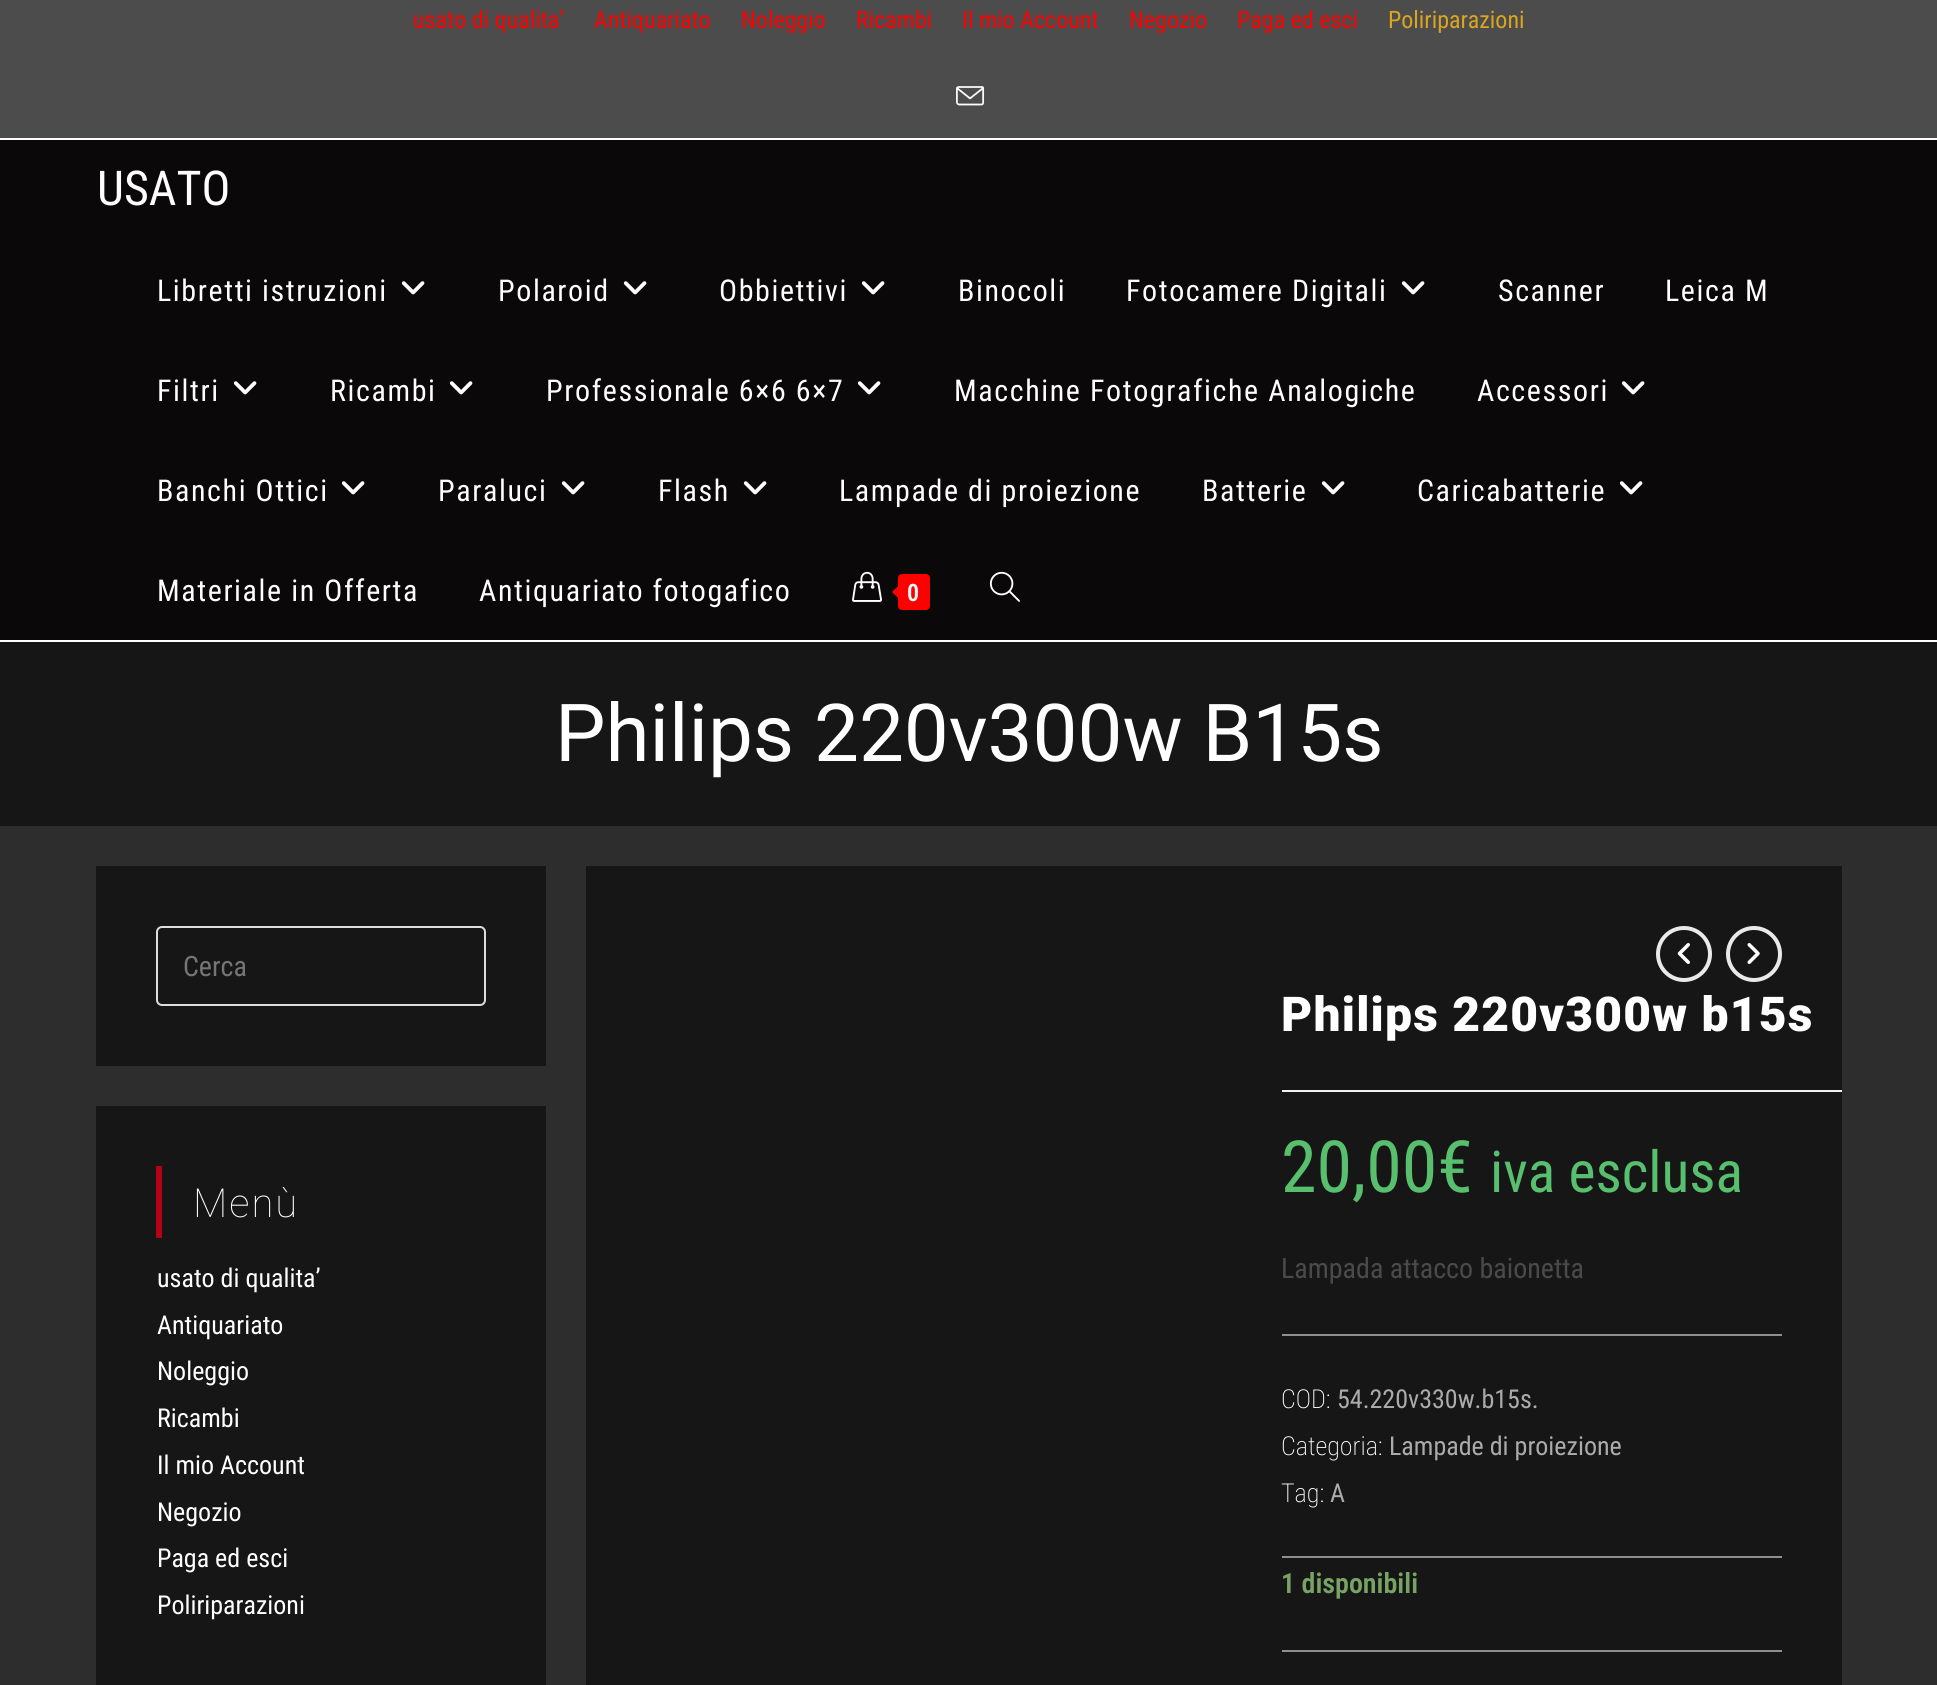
#include <cairo.h>
#include <math.h>
#include <stddef.h>


static void set_color(cairo_t *cr, unsigned color) {
    cairo_set_source_rgb(cr, (color >> 16) / 255.0, (color >> 8 & 255) / 255.0, (color & 255) / 255.0);
}

static void draw_text(cairo_t *cr, double x, double y, const char *s, const char *family, double size, int italic, int bold, unsigned color) {
    cairo_select_font_face(cr, family, italic ? CAIRO_FONT_SLANT_ITALIC : CAIRO_FONT_SLANT_NORMAL,
        bold ? CAIRO_FONT_WEIGHT_BOLD : CAIRO_FONT_WEIGHT_NORMAL);
    cairo_set_font_size(cr, size);
    set_color(cr, color);
    cairo_move_to(cr, x, y);
    cairo_show_text(cr, s);
}

static void draw_spaced(cairo_t *cr, double x, double y, const char *s, double letter, double word) {
    cairo_move_to(cr, x, y);
    while (*s) {
        char ch[5] = {0};
        int n = 0;
        do ch[n++] = *s++; while ((*s & 0xC0) == 0x80);
        cairo_show_text(cr, ch);
        cairo_rel_move_to(cr, letter + word * (*ch == ' '), 0);
    }
}

static void fill_rect(cairo_t *cr, double x, double y, double w, double h, unsigned color) {
    set_color(cr, color);
    cairo_rectangle(cr, x, y, w, h);
    cairo_fill(cr);
}

static void rounded_rect(cairo_t *cr, double x, double y, double w, double h, double r) {
    cairo_new_sub_path(cr);
    cairo_arc(cr, x + w - r, y + h - r, r, 0, M_PI / 2);
    cairo_arc(cr, x + r, y + h - r, r, M_PI / 2, M_PI);
    cairo_arc(cr, x + r, y + r, r, M_PI, 1.5 * M_PI);
    cairo_arc(cr, x + w - r, y + r, r, 1.5 * M_PI, 2 * M_PI);
    cairo_close_path(cr);
}

static void draw_image(cairo_t *cr, const char *path, double x, double y, double w, double h) {
    cairo_surface_t *image = cairo_image_surface_create_from_png(path);
    cairo_save(cr);
    cairo_set_source_surface(cr, image, x, y);
    cairo_rectangle(cr, x, y, w, h);
    cairo_fill(cr);
    cairo_restore(cr);
    cairo_surface_destroy(image);
}

int main(void) {
    cairo_surface_t *surface = cairo_image_surface_create(CAIRO_FORMAT_RGB24, 1937, 1685);
    cairo_t *cr = cairo_create(surface);
    cairo_font_options_t *options = cairo_font_options_create();
    cairo_font_options_set_hint_metrics(options, CAIRO_HINT_METRICS_OFF);
    cairo_font_options_set_hint_style(options, CAIRO_HINT_STYLE_NONE);
    cairo_set_font_options(cr, options);
    cairo_set_miter_limit(cr, 4);
    set_color(cr, 0x2D2D2D);
    cairo_paint(cr);
    fill_rect(cr, 0, 0, 1937, 138, 0x4C4C4C);
    fill_rect(cr, 0, 138, 1937, 2, 0xFFFFFF);
    draw_text(cr, 413, 28, "usato di qualita’", "Roboto Condensed", 24, 0, 0, 0xFF0000);
    draw_text(cr, 594, 28, "Antiquariato", "Roboto Condensed", 24, 0, 0, 0xFF0000);
    draw_text(cr, 741, 28, "Noleggio", "Roboto Condensed", 24, 0, 0, 0xFF0000);
    draw_text(cr, 856, 28, "Ricambi", "Roboto Condensed", 24, 0, 0, 0xFF0000);
    draw_text(cr, 962, 28, "Il mio Account", "Roboto Condensed", 24, 0, 0, 0xFF0000);
    draw_text(cr, 1129, 28, "Negozio", "Roboto Condensed", 24, 0, 0, 0xFF0000);
    draw_text(cr, 1237, 28, "Paga ed esci", "Roboto Condensed", 24, 0, 0, 0xFF0000);
    draw_text(cr, 1388, 28, "Poliriparazioni", "Roboto Condensed", 24, 0, 0, 0xDAA520);
    draw_image(cr, "assets/img1.png", 956, 86, 29, 20);
    fill_rect(cr, 0, 140, 1937, 500, 0x0A0808);
    fill_rect(cr, 0, 640, 1937, 2, 0xFFFFFF);
    draw_text(cr, 97, 205, "USATO", "Roboto Condensed", 48, 0, 0, 0xFFFFFF);
    cairo_set_font_size(cr, 30);
    draw_spaced(cr, 157, 301, "Libretti istruzioni", 1.6, 0);
    draw_image(cr, "assets/img2.png", 401, 281, 24, 14);
    draw_spaced(cr, 498, 301, "Polaroid", 1.6, 0);
    draw_image(cr, "assets/img2.png", 623, 281, 24, 14);
    draw_spaced(cr, 719, 301, "Obbiettivi", 1.6, 0);
    draw_image(cr, "assets/img2.png", 861, 281, 24, 14);
    draw_spaced(cr, 958, 301, "Binocoli", 1.6, 0);
    draw_spaced(cr, 1126, 301, "Fotocamere Digitali", 1.6, 0);
    draw_image(cr, "assets/img2.png", 1401, 281, 24, 14);
    draw_spaced(cr, 1498, 301, "Scanner", 1.6, 0);
    draw_spaced(cr, 1665, 301, "Leica M", 1.6, 0);
    draw_spaced(cr, 157, 401, "Filtri", 1.6, 0);
    draw_image(cr, "assets/img2.png", 233, 381, 24, 14);
    draw_spaced(cr, 330, 401, "Ricambi", 1.6, 0);
    draw_image(cr, "assets/img2.png", 449, 381, 24, 14);
    draw_spaced(cr, 546, 401, "Professionale 6×6 6×7", 1.6, 0);
    draw_image(cr, "assets/img2.png", 857, 381, 24, 14);
    draw_spaced(cr, 954, 401, "Macchine Fotografiche Analogiche", 1.6, 0);
    draw_spaced(cr, 1477, 401, "Accessori", 1.6, 0);
    draw_image(cr, "assets/img2.png", 1621, 381, 24, 14);
    draw_spaced(cr, 157, 501, "Banchi Ottici", 1.6, 0);
    draw_image(cr, "assets/img2.png", 341, 481, 24, 14);
    draw_spaced(cr, 438, 501, "Paraluci", 1.6, 0);
    draw_image(cr, "assets/img2.png", 561, 481, 24, 14);
    draw_spaced(cr, 658, 501, "Flash", 1.6, 0);
    draw_image(cr, "assets/img2.png", 743, 481, 24, 14);
    draw_spaced(cr, 839, 501, "Lampade di proiezione", 1.6, 0);
    draw_spaced(cr, 1202, 501, "Batterie", 1.6, 0);
    draw_image(cr, "assets/img2.png", 1321, 481, 24, 14);
    draw_spaced(cr, 1417, 501, "Caricabatterie", 1.6, 0);
    draw_image(cr, "assets/img2.png", 1619, 481, 24, 14);
    draw_spaced(cr, 157, 601, "Materiale in Offerta", 1.6, 0);
    draw_spaced(cr, 479, 601, "Antiquariato fotogafico", 1.6, 0);
    draw_image(cr, "assets/img3.png", 852, 571, 30, 31);
    set_color(cr, 0xFF0000);
    rounded_rect(cr, 898, 574, 32, 36, 4);
    cairo_fill(cr);
    cairo_new_path(cr);
    cairo_move_to(cr, 902, 582);
    cairo_line_to(cr, 902, 602);
    cairo_line_to(cr, 892, 592);
    cairo_close_path(cr);
    cairo_fill(cr);
    draw_text(cr, 907, 601, "0", "Roboto Condensed SemiBold", 24, 0, 0, 0xFFFFFF);
    draw_image(cr, "assets/img4.png", 989, 571, 31, 31);
    fill_rect(cr, 0, 642, 1937, 184, 0x161616);
    draw_text(cr, 555, 761, "Philips 220v300w B15s", "Roboto", 80, 0, 0, 0xFFFFFF);
    fill_rect(cr, 96, 866, 450, 200, 0x161616);
    rounded_rect(cr, 157, 927, 328, 78, 5);
    set_color(cr, 0xDDDDDD);
    cairo_stroke(cr);
    draw_text(cr, 183, 976, "Cerca", "Roboto Condensed", 28, 0, 0, 0x757575);
    fill_rect(cr, 96, 1106, 450, 579, 0x161616);
    fill_rect(cr, 156, 1166, 6, 72, 0xB50015);
    cairo_select_font_face(cr, "Roboto Thin", CAIRO_FONT_SLANT_NORMAL, CAIRO_FONT_WEIGHT_NORMAL);
    cairo_set_font_size(cr, 40);
    set_color(cr, 0xFFFFFF);
    draw_spaced(cr, 193, 1217, "Menù", 2, 0);
    draw_text(cr, 157, 1287, "usato di qualita’", "Roboto Condensed", 26, 0, 0, 0xFFFFFF);
    draw_text(cr, 157, 1334, "Antiquariato", "Roboto Condensed", 26, 0, 0, 0xFFFFFF);
    draw_text(cr, 157, 1380, "Noleggio", "Roboto Condensed", 26, 0, 0, 0xFFFFFF);
    draw_text(cr, 157, 1427, "Ricambi", "Roboto Condensed", 26, 0, 0, 0xFFFFFF);
    draw_text(cr, 157, 1474, "Il mio Account", "Roboto Condensed", 26, 0, 0, 0xFFFFFF);
    draw_text(cr, 157, 1521, "Negozio", "Roboto Condensed", 26, 0, 0, 0xFFFFFF);
    draw_text(cr, 157, 1567, "Paga ed esci", "Roboto Condensed", 26, 0, 0, 0xFFFFFF);
    draw_text(cr, 157, 1614, "Poliriparazioni", "Roboto Condensed", 26, 0, 0, 0xFFFFFF);
    fill_rect(cr, 586, 866, 1256, 819, 0x161616);
    cairo_new_path(cr);
    cairo_arc(cr, 1684, 954, 26, 0, 2 * M_PI);
    set_color(cr, 0xE9E9E9);
    cairo_set_line_width(cr, 4);
    cairo_stroke(cr);
    draw_image(cr, "assets/img5.png", 1677, 943, 13, 21);
    cairo_arc(cr, 1754, 954, 26, 0, 2 * M_PI);
    cairo_stroke(cr);
    draw_image(cr, "assets/img6.png", 1747, 943, 13, 21);
    fill_rect(cr, 1282, 1090, 560, 2, 0xF1F1F1);
    cairo_select_font_face(cr, "Roboto Black", CAIRO_FONT_SLANT_NORMAL, CAIRO_FONT_WEIGHT_NORMAL);
    cairo_set_font_size(cr, 48);
    set_color(cr, 0xFFFFFF);
    draw_spaced(cr, 1281, 1031, "Philips 220v300w b15s", 1.2, 0);
    draw_text(cr, 1281, 1192, "20,00€", "Roboto Condensed", 72, 0, 0, 0x57BF6D);
    draw_text(cr, 1490, 1192, "iva esclusa", "Roboto Condensed", 57.5, 0, 0, 0x57BF6D);
    draw_text(cr, 1281, 1278, "Lampada attacco baionetta", "Roboto Condensed", 28, 0, 0, 0x4A4A4A);
    fill_rect(cr, 1282, 1334, 500, 2, 0x8E8E8E);
    fill_rect(cr, 1282, 1556, 500, 2, 0x8E8E8E);
    draw_text(cr, 1281, 1408, "COD:", "Roboto Condensed ExtraLight", 26, 0, 0, 0xFFFFFF);
    draw_text(cr, 1337, 1408, "54.220v330w.b15s.", "Roboto Condensed", 26, 0, 0, 0xABABAB);
    draw_text(cr, 1281, 1455, "Categoria:", "Roboto Condensed ExtraLight", 26, 0, 0, 0xFFFFFF);
    draw_text(cr, 1389, 1455, "Lampade di proiezione", "Roboto Condensed", 26, 0, 0, 0xABABAB);
    draw_text(cr, 1281, 1502, "Tag:", "Roboto Condensed ExtraLight", 26, 0, 0, 0xFFFFFF);
    draw_text(cr, 1330, 1502, "A", "Roboto Condensed", 26, 0, 0, 0xABABAB);
    draw_text(cr, 1281, 1593, "1 disponibili", "Roboto Condensed SemiBold", 28, 0, 0, 0x77A464);
    fill_rect(cr, 1282, 1650, 500, 2, 0x8E8E8E);
    cairo_surface_write_to_png(surface, "output.png");
    cairo_font_options_destroy(options);
    cairo_destroy(cr);
    cairo_surface_destroy(surface);
    return 0;
}
